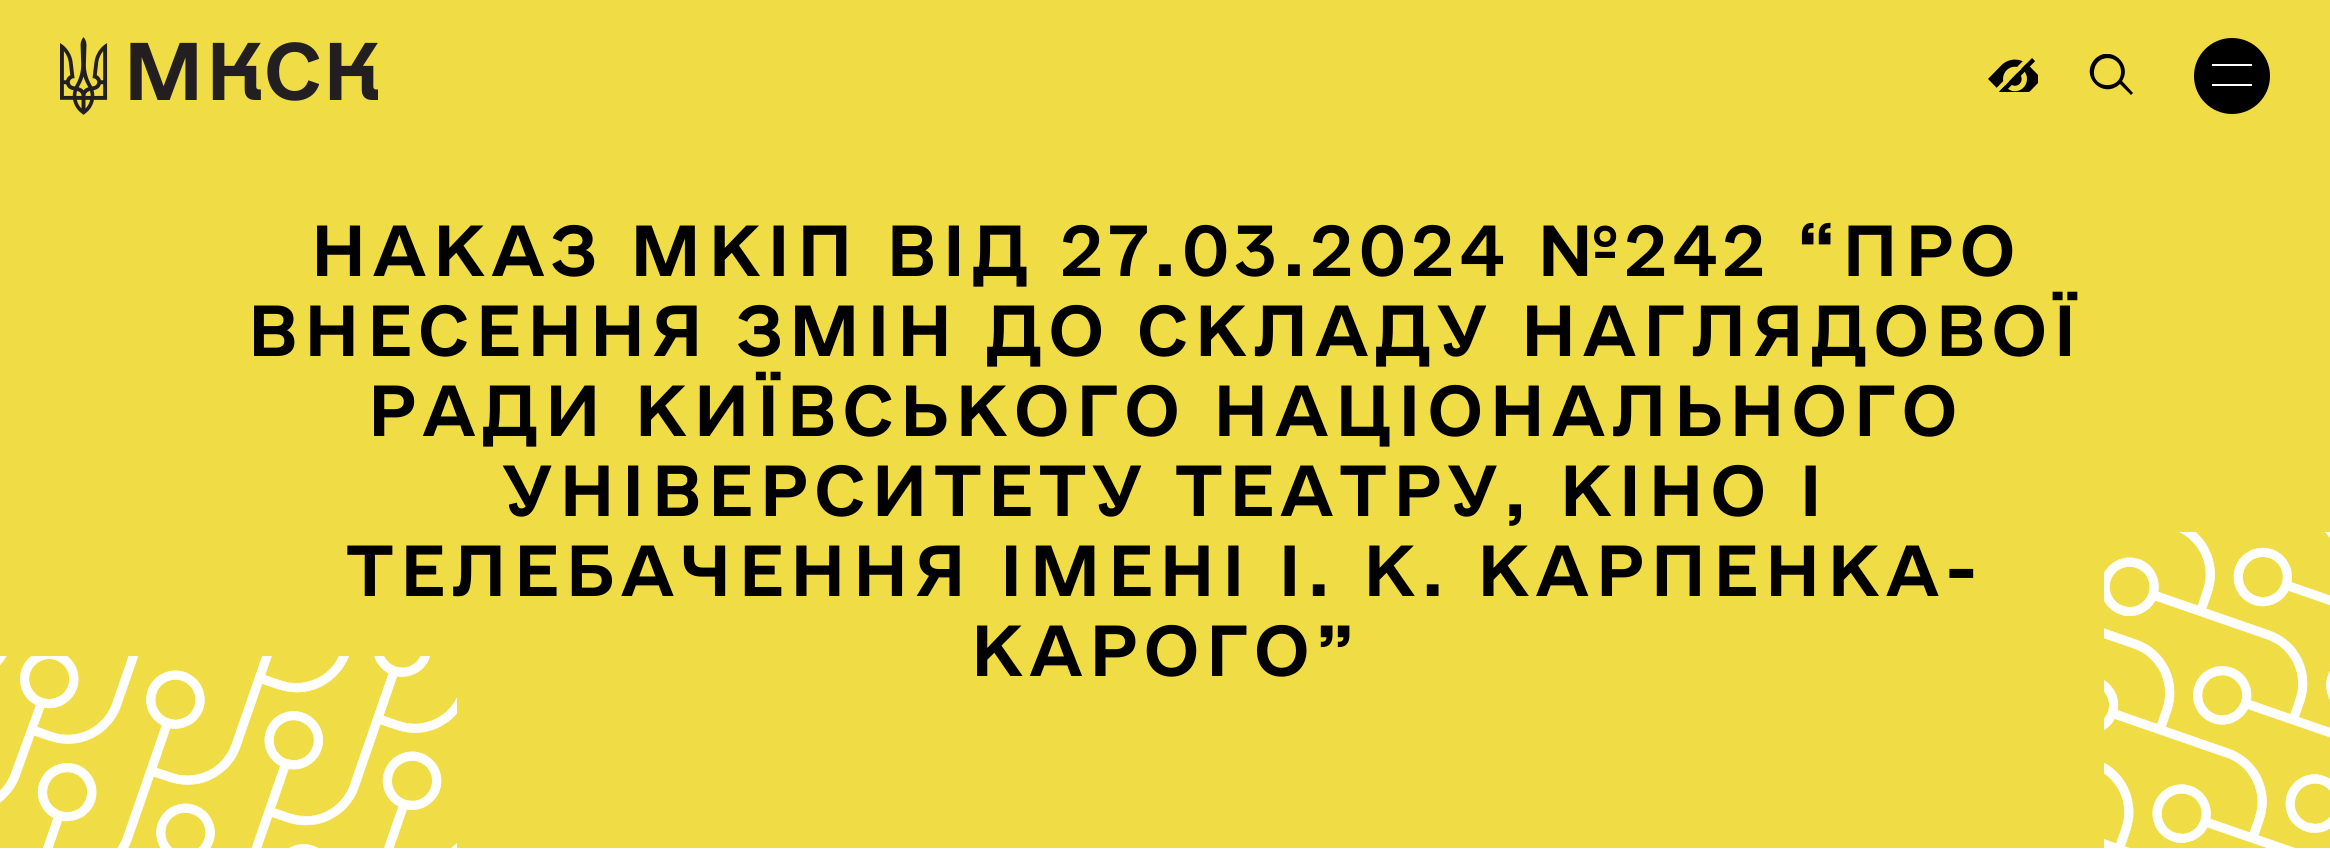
#include <cairo.h>
#include <math.h>
#include <stddef.h>


static void set_color(cairo_t *cr, unsigned color) {
    cairo_set_source_rgb(cr, (color >> 16) / 255.0, (color >> 8 & 255) / 255.0, (color & 255) / 255.0);
}

static void draw_spaced(cairo_t *cr, double x, double y, const char *s, double letter, double word) {
    cairo_move_to(cr, x, y);
    while (*s) {
        char ch[5] = {0};
        int n = 0;
        do ch[n++] = *s++; while ((*s & 0xC0) == 0x80);
        cairo_show_text(cr, ch);
        cairo_rel_move_to(cr, letter + word * (*ch == ' '), 0);
    }
}

static void fill_rect(cairo_t *cr, double x, double y, double w, double h, unsigned color) {
    set_color(cr, color);
    cairo_rectangle(cr, x, y, w, h);
    cairo_fill(cr);
}

static void draw_image(cairo_t *cr, const char *path, double x, double y, double w, double h) {
    cairo_surface_t *image = cairo_image_surface_create_from_png(path);
    cairo_save(cr);
    cairo_set_source_surface(cr, image, x, y);
    cairo_rectangle(cr, x, y, w, h);
    cairo_fill(cr);
    cairo_restore(cr);
    cairo_surface_destroy(image);
}

int main(void) {
    cairo_surface_t *surface = cairo_image_surface_create(CAIRO_FORMAT_RGB24, 2330, 859);
    cairo_t *cr = cairo_create(surface);
    cairo_font_options_t *options = cairo_font_options_create();
    cairo_font_options_set_hint_metrics(options, CAIRO_HINT_METRICS_OFF);
    cairo_font_options_set_hint_style(options, CAIRO_HINT_STYLE_NONE);
    cairo_set_font_options(cr, options);
    cairo_set_miter_limit(cr, 4);
    set_color(cr, 0xFFFFFF);
    cairo_paint(cr);
    fill_rect(cr, 0, 0, 2330, 848, 0xF0DC45);
    draw_image(cr, "assets/img1.png", 60, 37, 318, 78);
    draw_image(cr, "assets/img2.png", 1988, 58, 50, 34);
    cairo_save(cr);
    cairo_rectangle(cr, 2088, 54, 46, 42);
    cairo_clip(cr);
    set_color(cr, 0x000000);
    cairo_set_fill_rule(cr, CAIRO_FILL_RULE_EVEN_ODD);
    cairo_new_path(cr);
    cairo_move_to(cr, 2121, 72);
    cairo_curve_to(cr, 2121, 90, 2093, 89, 2094, 72);
    cairo_curve_to(cr, 2095, 53, 2121, 54, 2121, 72);
    cairo_close_path(cr);
    cairo_move_to(cr, 2120, 84);
    cairo_curve_to(cr, 2103, 100, 2079, 76, 2095, 59);
    cairo_curve_to(cr, 2110, 44, 2133, 64, 2122, 81);
    cairo_line_to(cr, 2133, 93);
    cairo_line_to(cr, 2131, 95);
    cairo_close_path(cr);
    cairo_fill(cr);
    cairo_restore(cr);
    set_color(cr, 0x000000);
    cairo_arc(cr, 2232, 76, 38, 0, 2 * M_PI);
    cairo_fill(cr);
    fill_rect(cr, 2212, 64, 40, 2, 0xFFFFFF);
    fill_rect(cr, 2212, 84, 40, 2, 0xFFFFFF);
    draw_image(cr, "assets/img3.png", 0, 656, 457, 192);
    cairo_select_font_face(cr, "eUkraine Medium", CAIRO_FONT_SLANT_NORMAL, CAIRO_FONT_WEIGHT_NORMAL);
    cairo_set_font_size(cr, 68);
    set_color(cr, 0x000000);
    draw_spaced(cr, 310, 276, "НАКАЗ МКІП ВІД 27.03.2024 №242 “ПРО", 5.45, 0);
    draw_spaced(cr, 247, 356, "ВНЕСЕННЯ ЗМІН ДО СКЛАДУ НАГЛЯДОВОЇ", 5.45, 0);
    draw_spaced(cr, 367, 436, "РАДИ КИЇВСЬКОГО НАЦІОНАЛЬНОГО", 5.45, 0);
    draw_spaced(cr, 502, 516, "УНІВЕРСИТЕТУ ТЕАТРУ, КІНО І", 5.45, 0);
    draw_spaced(cr, 346, 596, "ТЕЛЕБАЧЕННЯ ІМЕНІ І. К. КАРПЕНКА-", 5.45, 0);
    draw_spaced(cr, 970, 676, "КАРОГО”", 5.45, 0);
    draw_image(cr, "assets/img4.png", 2104, 532, 226, 316);
    cairo_surface_write_to_png(surface, "output.png");
    cairo_font_options_destroy(options);
    cairo_destroy(cr);
    cairo_surface_destroy(surface);
    return 0;
}
